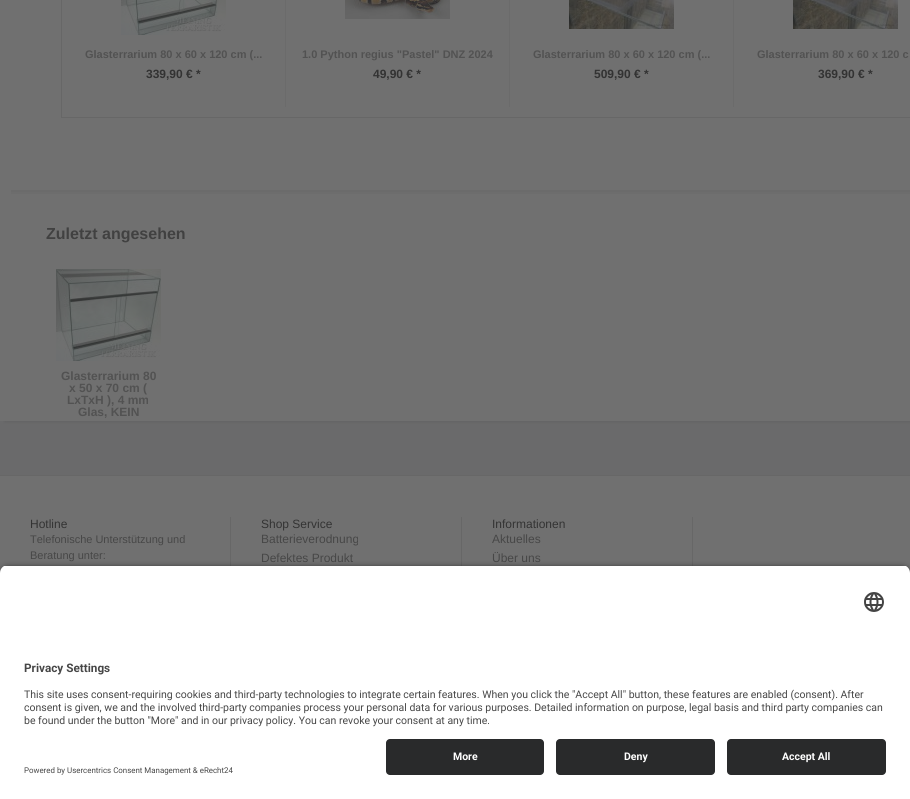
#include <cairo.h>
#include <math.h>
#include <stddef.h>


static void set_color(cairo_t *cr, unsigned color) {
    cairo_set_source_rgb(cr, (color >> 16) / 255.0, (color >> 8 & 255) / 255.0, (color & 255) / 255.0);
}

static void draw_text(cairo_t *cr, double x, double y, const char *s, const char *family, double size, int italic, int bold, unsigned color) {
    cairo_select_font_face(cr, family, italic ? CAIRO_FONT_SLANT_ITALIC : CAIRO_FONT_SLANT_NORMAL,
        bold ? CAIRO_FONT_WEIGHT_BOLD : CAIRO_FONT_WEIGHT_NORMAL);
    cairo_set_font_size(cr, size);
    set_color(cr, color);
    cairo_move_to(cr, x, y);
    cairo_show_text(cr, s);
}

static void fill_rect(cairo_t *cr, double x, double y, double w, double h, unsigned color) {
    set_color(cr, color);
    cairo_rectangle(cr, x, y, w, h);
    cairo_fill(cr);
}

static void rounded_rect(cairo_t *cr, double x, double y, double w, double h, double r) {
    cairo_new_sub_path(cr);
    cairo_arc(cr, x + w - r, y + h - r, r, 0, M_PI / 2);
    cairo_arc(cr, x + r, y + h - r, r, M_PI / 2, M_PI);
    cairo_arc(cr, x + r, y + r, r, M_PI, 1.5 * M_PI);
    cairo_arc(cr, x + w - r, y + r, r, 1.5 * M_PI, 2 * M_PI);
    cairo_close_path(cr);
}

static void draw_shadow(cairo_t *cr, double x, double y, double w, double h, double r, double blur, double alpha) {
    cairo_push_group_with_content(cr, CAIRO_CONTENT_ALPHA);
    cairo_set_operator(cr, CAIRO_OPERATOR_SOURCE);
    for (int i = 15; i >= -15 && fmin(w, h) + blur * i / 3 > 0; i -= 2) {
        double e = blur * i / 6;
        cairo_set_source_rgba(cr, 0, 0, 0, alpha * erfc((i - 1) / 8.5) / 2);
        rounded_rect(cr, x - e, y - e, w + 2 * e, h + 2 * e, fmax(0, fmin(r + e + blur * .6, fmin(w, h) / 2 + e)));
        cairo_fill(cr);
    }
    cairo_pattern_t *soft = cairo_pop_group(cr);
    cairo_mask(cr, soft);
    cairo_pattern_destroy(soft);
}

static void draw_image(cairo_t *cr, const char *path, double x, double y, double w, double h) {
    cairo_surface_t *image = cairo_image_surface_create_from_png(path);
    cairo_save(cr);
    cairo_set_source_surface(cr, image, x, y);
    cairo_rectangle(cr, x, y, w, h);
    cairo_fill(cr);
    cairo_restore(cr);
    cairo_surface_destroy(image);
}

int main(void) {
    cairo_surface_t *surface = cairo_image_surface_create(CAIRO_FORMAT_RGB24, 910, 799);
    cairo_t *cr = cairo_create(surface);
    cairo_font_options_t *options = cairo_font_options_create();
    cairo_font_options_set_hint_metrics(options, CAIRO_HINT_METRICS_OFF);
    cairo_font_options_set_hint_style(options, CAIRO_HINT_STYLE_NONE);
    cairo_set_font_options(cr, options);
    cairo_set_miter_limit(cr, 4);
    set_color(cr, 0x6A6A6B);
    cairo_paint(cr);
    fill_rect(cr, 0, 0, 910, 421, 0x707070);
    cairo_rectangle(cr, 61.5, -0.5, 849, 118);
    set_color(cr, 0x676767);
    cairo_set_line_width(cr, 1);
    cairo_stroke(cr);
    fill_rect(cr, 285, 0, 1, 107, 0x6B6B6B);
    draw_image(cr, "assets/img1.png", 121, 0, 105, 35);
    draw_text(cr, 85, 58, "Glasterrarium 80 x 60 x 120 cm (...", "Liberation Sans", 11, 0, 1, 0x525252);
    draw_text(cr, 146, 78, "339,90 € *", "Liberation Sans", 12, 0, 1, 0x333333);
    fill_rect(cr, 509, 0, 1, 107, 0x6B6B6B);
    draw_image(cr, "assets/img2.png", 345, 0, 105, 19);
    draw_text(cr, 302, 58, "1.0 Python regius \"Pastel\" DNZ 2024", "Liberation Sans", 11, 0, 1, 0x525252);
    draw_text(cr, 373, 78, "49,90 € *", "Liberation Sans", 12, 0, 1, 0x333333);
    fill_rect(cr, 733, 0, 1, 107, 0x6B6B6B);
    draw_image(cr, "assets/img3.png", 569, 0, 105, 29);
    draw_text(cr, 533, 58, "Glasterrarium 80 x 60 x 120 cm (...", "Liberation Sans", 11, 0, 1, 0x525252);
    draw_text(cr, 594, 78, "509,90 € *", "Liberation Sans", 12, 0, 1, 0x333333);
    draw_image(cr, "assets/img3.png", 793, 0, 105, 29);
    draw_text(cr, 757, 58, "Glasterrarium 80 x 60 x 120 c", "Liberation Sans", 11, 0, 1, 0x525252);
    draw_text(cr, 818, 78, "369,90 € *", "Liberation Sans", 12, 0, 1, 0x333333);
    draw_image(cr, "assets/img4.png", 11, 190, 899, 4);
    draw_text(cr, 46, 239, "Zuletzt angesehen", "Liberation Sans", 16, 0, 1, 0x414141);
    draw_image(cr, "assets/img5.png", 56, 269, 105, 92);
    draw_text(cr, 61, 380, "Glasterrarium 80", "Liberation Sans", 12, 0, 1, 0x525252);
    draw_text(cr, 69, 392, "x 50 x 70 cm (", "Liberation Sans", 12, 0, 1, 0x525252);
    draw_text(cr, 67, 404, "LxTxH ), 4 mm", "Liberation Sans", 12, 0, 1, 0x525252);
    draw_text(cr, 78, 416, "Glas, KEIN", "Liberation Sans", 12, 0, 1, 0x525252);
    draw_image(cr, "assets/img6.png", 3, 421, 907, 3);
    fill_rect(cr, 0, 476, 910, 97, 0x707070);
    fill_rect(cr, 0, 475, 910, 1, 0x676767);
    draw_image(cr, "assets/img7.png", 230, 517, 463, 49);
    draw_text(cr, 30, 528, "Hotline", "Liberation Sans", 12, 0, 0, 0x333333);
    draw_text(cr, 30, 543, "Telefonische Unterstützung und", "Liberation Sans", 11, 0, 0, 0x474747);
    draw_text(cr, 30, 559, "Beratung unter:", "Liberation Sans", 11, 0, 0, 0x474747);
    draw_text(cr, 261, 528, "Shop Service", "Liberation Sans", 12, 0, 0, 0x333333);
    draw_text(cr, 261, 543, "Batterieverodnung", "Liberation Sans", 12, 0, 0, 0x474747);
    draw_text(cr, 261, 562, "Defektes Produkt", "Liberation Sans", 12, 0, 0, 0x474747);
    draw_text(cr, 492, 528, "Informationen", "Liberation Sans", 12, 0, 0, 0x333333);
    draw_text(cr, 492, 543, "Aktuelles", "Liberation Sans", 12, 0, 0, 0x474747);
    draw_text(cr, 492, 562, "Über uns", "Liberation Sans", 12, 0, 0, 0x474747);
    set_color(cr, 0x000000);
    draw_shadow(cr, 0, 568, 910, 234, 8, 3.5, 0.8);
    cairo_save(cr);
    cairo_new_path(cr);
    cairo_move_to(cr, 8, 565);
    cairo_line_to(cr, 902, 565);
    cairo_curve_to(cr, 906.5, 565, 910, 568.5, 910, 573);
    cairo_line_to(cr, 910, 731);
    cairo_line_to(cr, 0, 731);
    cairo_line_to(cr, 0, 573);
    cairo_curve_to(cr, 0, 568.5, 3.5, 565, 8, 565);
    cairo_close_path(cr);
    cairo_clip(cr);
    fill_rect(cr, 0, 566, 910, 165, 0xFFFFFF);
    cairo_restore(cr);
    draw_image(cr, "assets/img8.png", 864, 592, 20, 20);
    draw_text(cr, 24, 672, "Privacy Settings", "Roboto", 11.75, 0, 1, 0x474747);
    draw_text(cr, 24, 698, "This site uses consent-requiring cookies and third-party technologies to integrate certain features. When you click the \"Accept All\" button, these features are enabled (consent). After", "Roboto", 10.5, 0, 0, 0x474747);
    draw_text(cr, 24, 711, "consent is given, we and the involved third-party companies process your personal data for various purposes. Detailed information on purpose, legal basis and third party companies can", "Roboto", 10.5, 0, 0, 0x474747);
    draw_text(cr, 24, 724, "be found under the button \"More\" and in our privacy policy. You can revoke your consent at any time.", "Roboto", 10.5, 0, 0, 0x474747);
    fill_rect(cr, 0, 731, 910, 68, 0xFFFFFF);
    set_color(cr, 0x292A2B);
    rounded_rect(cr, 386, 739, 158, 36, 4);
    cairo_fill(cr);
    draw_text(cr, 453, 760, "More", "Roboto", 10.5, 0, 1, 0xFFFFFF);
    set_color(cr, 0x292A2B);
    rounded_rect(cr, 556, 739, 159, 36, 4);
    cairo_fill(cr);
    draw_text(cr, 624, 760, "Deny", "Roboto", 10.5, 0, 1, 0xFFFFFF);
    set_color(cr, 0x292A2B);
    rounded_rect(cr, 727, 739, 159, 36, 4);
    cairo_fill(cr);
    draw_text(cr, 782, 760, "Accept All", "Roboto", 10.5, 0, 1, 0xFFFFFF);
    draw_text(cr, 24, 773, "Powered by Usercentrics Consent Management & eRecht24", "Roboto", 7.9, 0, 0, 0x474747);
    cairo_surface_write_to_png(surface, "output.png");
    cairo_font_options_destroy(options);
    cairo_destroy(cr);
    cairo_surface_destroy(surface);
    return 0;
}
